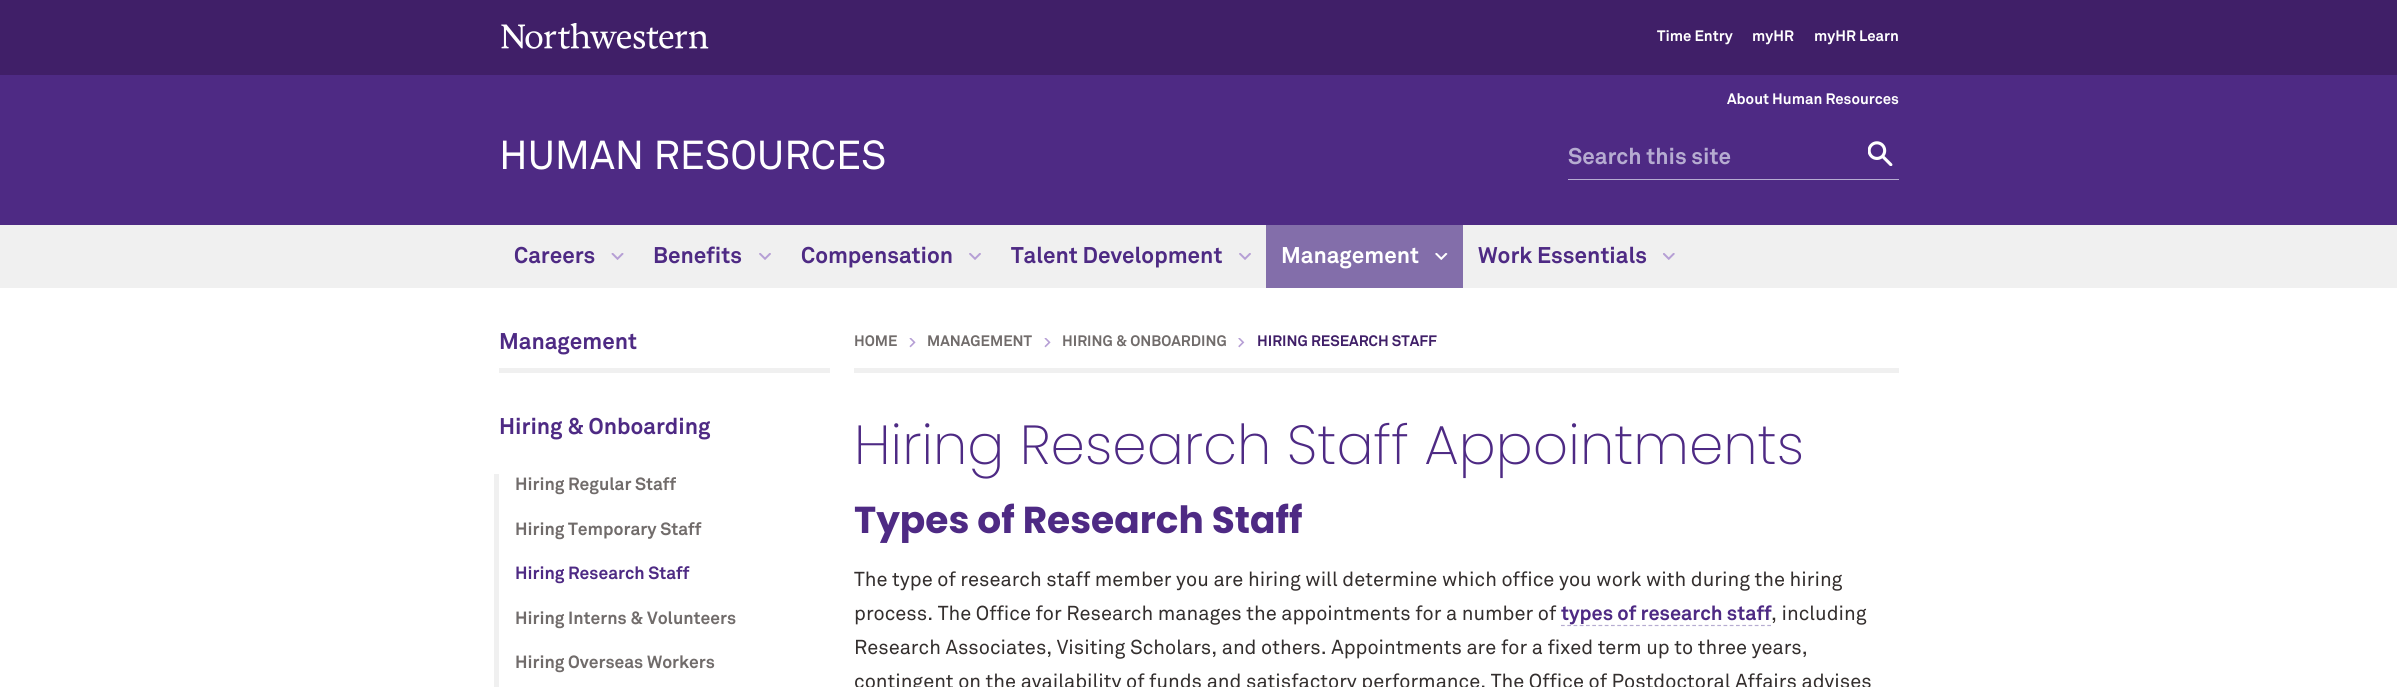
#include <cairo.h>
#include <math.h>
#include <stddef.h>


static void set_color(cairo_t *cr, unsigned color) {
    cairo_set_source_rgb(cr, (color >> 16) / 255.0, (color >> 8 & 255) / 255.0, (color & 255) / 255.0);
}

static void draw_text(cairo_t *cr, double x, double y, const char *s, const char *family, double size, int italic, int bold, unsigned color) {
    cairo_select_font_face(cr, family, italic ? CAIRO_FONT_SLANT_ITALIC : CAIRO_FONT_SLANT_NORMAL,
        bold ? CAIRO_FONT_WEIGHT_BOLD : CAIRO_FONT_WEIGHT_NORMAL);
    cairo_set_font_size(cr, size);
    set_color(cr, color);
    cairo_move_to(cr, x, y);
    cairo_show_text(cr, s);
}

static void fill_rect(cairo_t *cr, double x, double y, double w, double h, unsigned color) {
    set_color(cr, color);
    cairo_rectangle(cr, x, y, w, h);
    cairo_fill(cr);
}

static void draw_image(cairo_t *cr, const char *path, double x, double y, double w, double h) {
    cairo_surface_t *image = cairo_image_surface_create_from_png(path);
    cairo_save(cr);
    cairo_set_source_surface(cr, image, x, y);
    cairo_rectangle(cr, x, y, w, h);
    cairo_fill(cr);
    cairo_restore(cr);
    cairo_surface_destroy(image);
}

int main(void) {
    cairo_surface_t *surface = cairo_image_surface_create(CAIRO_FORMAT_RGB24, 2397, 687);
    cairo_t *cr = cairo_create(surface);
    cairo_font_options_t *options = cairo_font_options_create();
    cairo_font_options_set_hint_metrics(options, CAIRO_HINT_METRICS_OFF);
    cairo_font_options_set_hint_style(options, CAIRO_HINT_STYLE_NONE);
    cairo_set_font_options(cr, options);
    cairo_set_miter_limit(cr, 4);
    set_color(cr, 0xFFFFFF);
    cairo_paint(cr);
    fill_rect(cr, 0, 75, 2397, 150, 0x4E2A84);
    fill_rect(cr, 0, 0, 2397, 75, 0x401F68);
    draw_image(cr, "assets/img1.png", 501, 23, 208, 26);
    draw_text(cr, 1657, 41, "Time Entry", "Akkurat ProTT", 15, 0, 1, 0xFFFFFF);
    draw_text(cr, 1752, 41, "myHR", "Akkurat ProTT", 15, 0, 1, 0xFFFFFF);
    draw_text(cr, 1814, 41, "myHR Learn", "Akkurat ProTT", 15, 0, 1, 0xFFFFFF);
    draw_text(cr, 1727, 104, "About Human Resources", "Akkurat ProTT", 15, 0, 1, 0xFFFFFF);
    draw_text(cr, 499, 169, "HUMAN RESOURCES", "Akkurat ProTT", 40, 0, 0, 0xFFFFFF);
    fill_rect(cr, 1568, 179, 331, 1, 0xB6ACD1);
    draw_text(cr, 1568, 164, "Search this site", "Akkurat ProTT", 22.5, 0, 1, 0xB6ACD1);
    draw_image(cr, "assets/img2.png", 1868, 141, 25, 25);
    fill_rect(cr, 0, 225, 2397, 63, 0xF0F0F0);
    draw_text(cr, 514, 263, "Careers", "Akkurat ProTT", 22.5, 0, 1, 0x4E2A84);
    draw_image(cr, "assets/img3.png", 611, 253, 13, 7);
    draw_text(cr, 653, 263, "Benefits", "Akkurat ProTT", 22.5, 0, 1, 0x4E2A84);
    draw_image(cr, "assets/img4.png", 759, 253, 12, 7);
    draw_text(cr, 801, 263, "Compensation", "Akkurat ProTT", 22.5, 0, 1, 0x4E2A84);
    draw_image(cr, "assets/img4.png", 969, 253, 12, 7);
    draw_text(cr, 1011, 263, "Talent Development", "Akkurat ProTT", 22.5, 0, 1, 0x4E2A84);
    draw_image(cr, "assets/img4.png", 1239, 253, 12, 7);
    fill_rect(cr, 1266, 225, 197, 63, 0x836EAA);
    draw_text(cr, 1281, 263, "Management", "Akkurat ProTT", 22.5, 0, 1, 0xFFFFFF);
    draw_image(cr, "assets/img5.png", 1435, 253, 13, 7);
    draw_text(cr, 1478, 263, "Work Essentials", "Akkurat ProTT", 22.5, 0, 1, 0x4E2A84);
    draw_image(cr, "assets/img6.png", 1663, 253, 12, 7);
    fill_rect(cr, 499, 368, 331, 5, 0xF0F0F0);
    draw_text(cr, 499, 349, "Management", "Akkurat ProTT", 22.5, 0, 1, 0x4E2A84);
    draw_text(cr, 499, 434, "Hiring & Onboarding", "Akkurat ProTT", 22.5, 0, 1, 0x4E2A84);
    fill_rect(cr, 494, 474, 5, 213, 0xF0F0F0);
    draw_text(cr, 515, 490, "Hiring Regular Staff", "Akkurat ProTT", 17.5, 0, 1, 0x716C6B);
    draw_text(cr, 515, 535, "Hiring Temporary Staff", "Akkurat ProTT", 17.5, 0, 1, 0x716C6B);
    draw_text(cr, 515, 579, "Hiring Research Staff", "Akkurat ProTT", 17.5, 0, 1, 0x4E2A84);
    draw_text(cr, 515, 624, "Hiring Interns & Volunteers", "Akkurat ProTT", 17.5, 0, 1, 0x716C6B);
    draw_text(cr, 515, 668, "Hiring Overseas Workers", "Akkurat ProTT", 17.5, 0, 1, 0x716C6B);
    fill_rect(cr, 854, 368, 1045, 5, 0xF0F0F0);
    draw_text(cr, 854, 346, "HOME", "Akkurat ProTT", 15, 0, 1, 0x716C6B);
    draw_image(cr, "assets/img7.png", 909, 338, 7, 10);
    draw_text(cr, 927, 346, "MANAGEMENT", "Akkurat ProTT", 15, 0, 1, 0x716C6B);
    draw_image(cr, "assets/img7.png", 1044, 338, 7, 10);
    draw_text(cr, 1062, 346, "HIRING & ONBOARDING", "Akkurat ProTT", 15, 0, 1, 0x716C6B);
    draw_image(cr, "assets/img8.png", 1238, 338, 7, 10);
    draw_text(cr, 1257, 346, "HIRING RESEARCH STAFF", "Akkurat ProTT", 15, 0, 1, 0x401F68);
    draw_text(cr, 854, 464, "Hiring Research Staff Appointments", "Poppins ExtraLight", 55, 0, 0, 0x4E2A84);
    draw_text(cr, 854, 533, "Types of Research Staff", "Poppins", 37.5, 0, 1, 0x4E2A84);
    draw_text(cr, 854, 586, "The type of research staff member you are hiring will determine which office you work with during the hiring", "Akkurat ProTT", 20, 0, 0, 0x342F2E);
    draw_text(cr, 854, 620, "process. The Office for Research manages the appointments for a number of", "Akkurat ProTT", 20, 0, 0, 0x342F2E);
    cairo_new_path(cr);
    cairo_move_to(cr, 1561, 625.5);
    cairo_line_to(cr, 1771, 625.5);
    set_color(cr, 0xB6ACD1);
    cairo_set_line_width(cr, 1.2);
    cairo_set_dash(cr, (double[]){3.75, 2.5}, 2, 0);
    cairo_stroke(cr);
    draw_text(cr, 1561, 620, "types of research staff", "Akkurat ProTT", 20, 0, 1, 0x4E2A84);
    draw_text(cr, 1771, 620, ", including", "Akkurat ProTT", 20, 0, 0, 0x342F2E);
    draw_text(cr, 854, 654, "Research Associates, Visiting Scholars, and others. Appointments are for a fixed term up to three years,", "Akkurat ProTT", 20, 0, 0, 0x342F2E);
    draw_text(cr, 854, 688, "contingent on the availability of funds and satisfactory performance. The Office of Postdoctoral Affairs advises", "Akkurat ProTT", 20, 0, 0, 0x342F2E);
    cairo_surface_write_to_png(surface, "output.png");
    cairo_font_options_destroy(options);
    cairo_destroy(cr);
    cairo_surface_destroy(surface);
    return 0;
}
